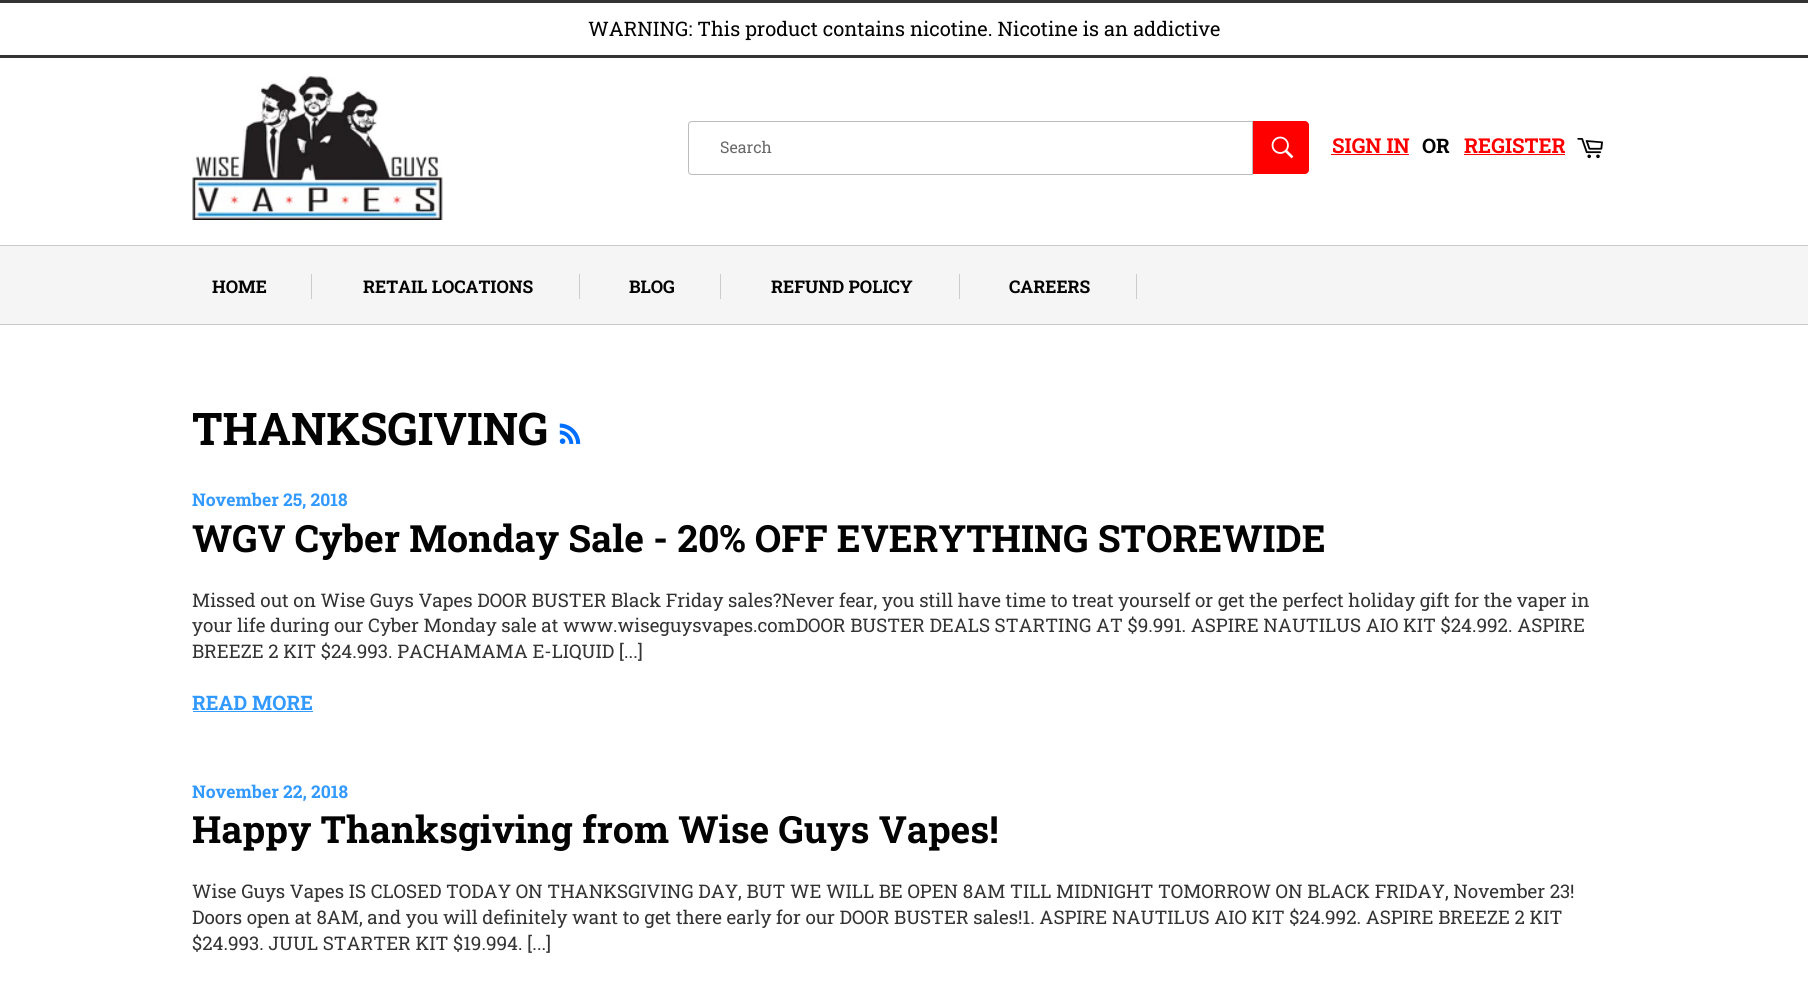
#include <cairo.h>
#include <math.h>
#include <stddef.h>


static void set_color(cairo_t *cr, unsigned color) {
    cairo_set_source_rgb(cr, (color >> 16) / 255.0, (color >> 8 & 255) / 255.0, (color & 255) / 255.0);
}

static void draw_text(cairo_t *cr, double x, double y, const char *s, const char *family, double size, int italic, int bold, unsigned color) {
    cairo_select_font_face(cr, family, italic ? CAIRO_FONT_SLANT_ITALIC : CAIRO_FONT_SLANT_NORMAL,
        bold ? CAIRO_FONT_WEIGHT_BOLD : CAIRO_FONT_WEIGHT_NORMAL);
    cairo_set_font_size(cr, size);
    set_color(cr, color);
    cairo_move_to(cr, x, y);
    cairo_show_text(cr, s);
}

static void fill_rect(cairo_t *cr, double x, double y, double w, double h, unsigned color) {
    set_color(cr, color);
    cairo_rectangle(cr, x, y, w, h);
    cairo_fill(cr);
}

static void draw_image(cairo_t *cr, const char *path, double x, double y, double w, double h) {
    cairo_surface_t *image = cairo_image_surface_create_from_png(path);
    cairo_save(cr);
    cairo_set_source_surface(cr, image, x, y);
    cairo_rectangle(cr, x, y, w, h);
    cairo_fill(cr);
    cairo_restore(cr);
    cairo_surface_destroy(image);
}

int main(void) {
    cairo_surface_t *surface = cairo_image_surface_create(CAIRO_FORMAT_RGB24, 1808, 981);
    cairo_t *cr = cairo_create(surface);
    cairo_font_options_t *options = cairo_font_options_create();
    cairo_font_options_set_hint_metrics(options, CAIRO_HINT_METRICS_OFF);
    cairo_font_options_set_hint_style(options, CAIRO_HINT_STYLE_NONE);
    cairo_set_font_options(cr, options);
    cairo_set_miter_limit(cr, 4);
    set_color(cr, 0xFFFFFF);
    cairo_paint(cr);
    fill_rect(cr, 0, 0, 1808, 3, 0x333333);
    fill_rect(cr, 0, 55, 1808, 3, 0x333333);
    draw_text(cr, 588, 36, "WARNING: This product contains nicotine. Nicotine is an addictive", "Roboto Slab", 20, 0, 0, 0x030303);
    fill_rect(cr, 0, 246, 1808, 78, 0xF5F5F5);
    fill_rect(cr, 0, 245, 1808, 1, 0xCBC9C9);
    fill_rect(cr, 0, 324, 1808, 1, 0xCBC9C9);
    draw_text(cr, 1332, 153, "SIGN IN", "Roboto Slab", 20.5, 0, 1, 0xFF0000);
    fill_rect(cr, 1331, 154, 78, 1, 0xFF0000);
    draw_text(cr, 1422, 153, "OR", "Roboto Slab", 20, 0, 1, 0x030303);
    draw_text(cr, 1464, 153, "REGISTER", "Roboto Slab", 20.5, 0, 1, 0xFF0000);
    fill_rect(cr, 1464, 154, 101, 1, 0xFF0000);
    fill_rect(cr, 311, 274, 1, 25, 0xCCCCCC);
    draw_text(cr, 212, 293, "HOME", "Roboto Slab", 17.5, 0, 1, 0x030303);
    fill_rect(cr, 579, 274, 1, 25, 0xCCCCCC);
    draw_text(cr, 363, 293, "RETAIL LOCATIONS", "Roboto Slab", 17.5, 0, 1, 0x030303);
    fill_rect(cr, 720, 274, 1, 25, 0xCCCCCC);
    draw_text(cr, 629, 293, "BLOG", "Roboto Slab", 17.5, 0, 1, 0x030303);
    fill_rect(cr, 959, 274, 1, 25, 0xCCCCCC);
    draw_text(cr, 771, 293, "REFUND POLICY", "Roboto Slab", 17.5, 0, 1, 0x030303);
    fill_rect(cr, 1136, 274, 1, 25, 0xCCCCCC);
    draw_text(cr, 1009, 293, "CAREERS", "Roboto Slab", 17.5, 0, 1, 0x030303);
    draw_image(cr, "assets/img1.png", 192, 76, 251, 144);
    cairo_new_path(cr);
    cairo_move_to(cr, 692, 121.5);
    cairo_line_to(cr, 1252.5, 121.5);
    cairo_line_to(cr, 1252.5, 174.5);
    cairo_line_to(cr, 692, 174.5);
    cairo_curve_to(cr, 690, 174.5, 688.5, 173, 688.5, 171);
    cairo_line_to(cr, 688.5, 125);
    cairo_curve_to(cr, 688.5, 123, 690, 121.5, 692, 121.5);
    cairo_close_path(cr);
    set_color(cr, 0xBDBCBC);
    cairo_set_line_width(cr, 1);
    cairo_stroke(cr);
    draw_text(cr, 720, 153, "Search", "Roboto Slab", 16, 0, 0, 0x686868);
    set_color(cr, 0xFF0000);
    cairo_new_path(cr);
    cairo_move_to(cr, 1253, 121);
    cairo_line_to(cr, 1305, 121);
    cairo_curve_to(cr, 1307, 121, 1309, 123, 1309, 125);
    cairo_line_to(cr, 1309, 170);
    cairo_curve_to(cr, 1309, 172, 1307, 174, 1305, 174);
    cairo_line_to(cr, 1253, 174);
    cairo_close_path(cr);
    cairo_fill(cr);
    draw_image(cr, "assets/img2.png", 1271, 136, 23, 23);
    draw_image(cr, "assets/img3.png", 1577, 138, 26, 21);
    draw_text(cr, 192, 445, "THANKSGIVING", "Roboto Slab", 45, 0, 1, 0x030303);
    draw_image(cr, "assets/img4.png", 559, 423, 22, 21);
    draw_text(cr, 192, 506, "November 25, 2018", "Roboto Slab", 17.5, 0, 1, 0x3299FF);
    draw_text(cr, 192, 552, "WGV Cyber Monday Sale - 20% OFF EVERYTHING STOREWIDE", "Roboto Slab", 37.5, 0, 1, 0x030303);
    draw_text(cr, 192, 607, "Missed out on Wise Guys Vapes DOOR BUSTER Black Friday sales?Never fear, you still have time to treat yourself or get the perfect holiday gift for the vaper in", "Roboto Slab", 18.75, 0, 0, 0x333333);
    draw_text(cr, 192, 632, "your life during our Cyber Monday sale at www.wiseguysvapes.comDOOR BUSTER DEALS STARTING AT $9.991. ASPIRE NAUTILUS AIO KIT $24.992. ASPIRE", "Roboto Slab", 18.75, 0, 0, 0x333333);
    draw_text(cr, 192, 658, "BREEZE 2 KIT $24.993. PACHAMAMA E-LIQUID [...]", "Roboto Slab", 18.75, 0, 0, 0x333333);
    draw_text(cr, 192, 710, "READ MORE", "Roboto Slab", 20, 0, 1, 0x3299FF);
    fill_rect(cr, 193, 711, 120, 1, 0x3299FF);
    draw_text(cr, 192, 798, "November 22, 2018", "Roboto Slab", 17.5, 0, 1, 0x3299FF);
    draw_text(cr, 192, 843, "Happy Thanksgiving from Wise Guys Vapes!", "Roboto Slab", 37.5, 0, 1, 0x030303);
    draw_text(cr, 192, 898, "Wise Guys Vapes IS CLOSED TODAY ON THANKSGIVING DAY, BUT WE WILL BE OPEN 8AM TILL MIDNIGHT TOMORROW ON BLACK FRIDAY, November 23!", "Roboto Slab", 18.75, 0, 0, 0x333333);
    draw_text(cr, 192, 924, "Doors open at 8AM, and you will definitely want to get there early for our DOOR BUSTER sales!1. ASPIRE NAUTILUS AIO KIT $24.992. ASPIRE BREEZE 2 KIT", "Roboto Slab", 18.75, 0, 0, 0x333333);
    draw_text(cr, 192, 950, "$24.993. JUUL STARTER KIT $19.994. [...]", "Roboto Slab", 18.75, 0, 0, 0x333333);
    cairo_surface_write_to_png(surface, "output.png");
    cairo_font_options_destroy(options);
    cairo_destroy(cr);
    cairo_surface_destroy(surface);
    return 0;
}
